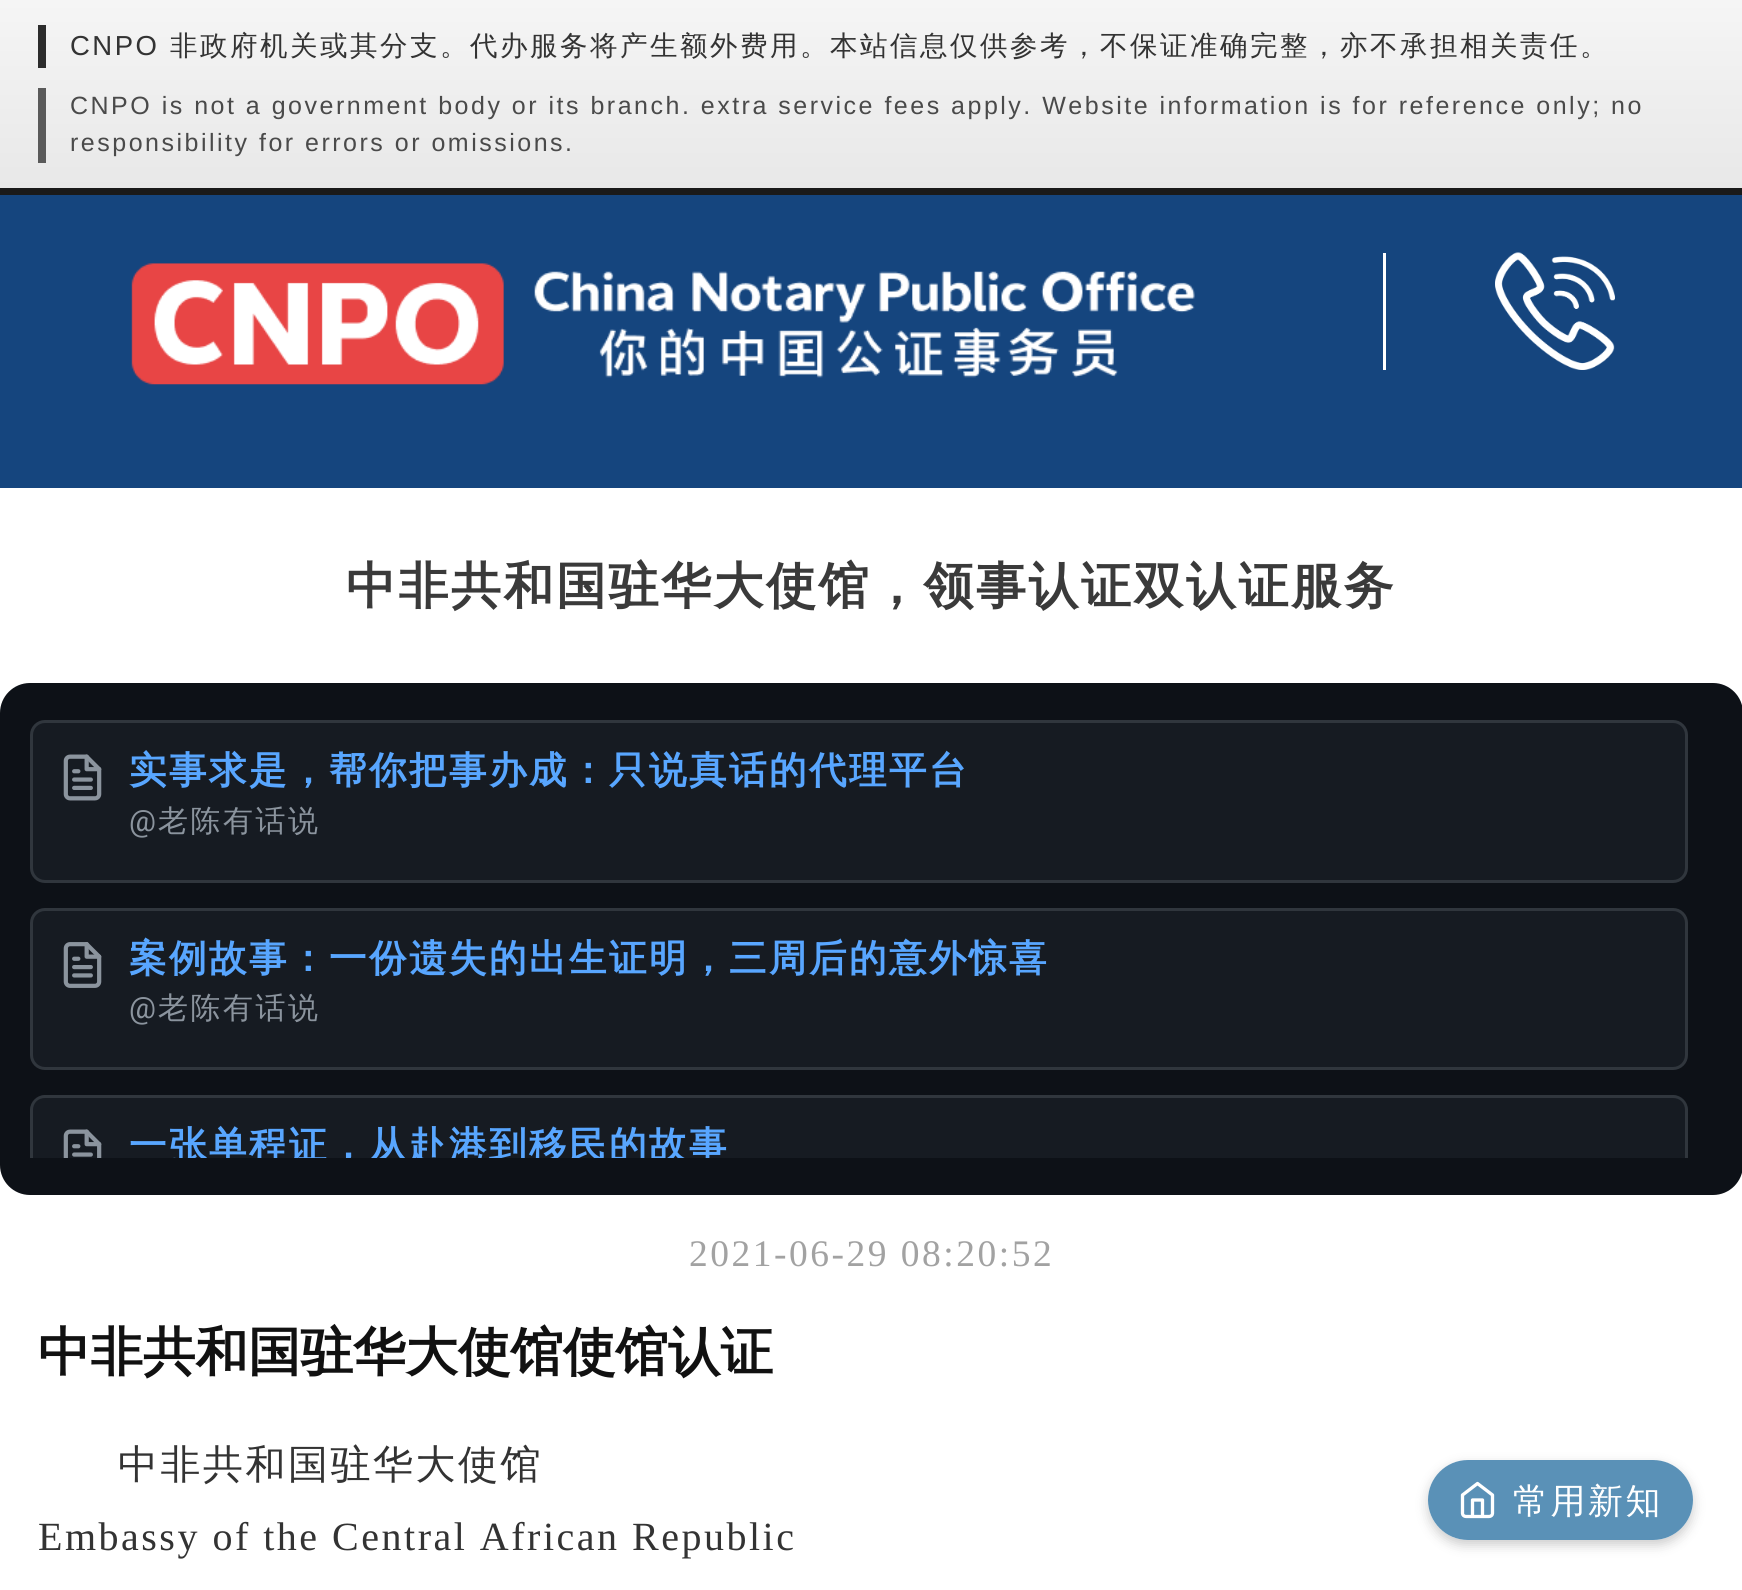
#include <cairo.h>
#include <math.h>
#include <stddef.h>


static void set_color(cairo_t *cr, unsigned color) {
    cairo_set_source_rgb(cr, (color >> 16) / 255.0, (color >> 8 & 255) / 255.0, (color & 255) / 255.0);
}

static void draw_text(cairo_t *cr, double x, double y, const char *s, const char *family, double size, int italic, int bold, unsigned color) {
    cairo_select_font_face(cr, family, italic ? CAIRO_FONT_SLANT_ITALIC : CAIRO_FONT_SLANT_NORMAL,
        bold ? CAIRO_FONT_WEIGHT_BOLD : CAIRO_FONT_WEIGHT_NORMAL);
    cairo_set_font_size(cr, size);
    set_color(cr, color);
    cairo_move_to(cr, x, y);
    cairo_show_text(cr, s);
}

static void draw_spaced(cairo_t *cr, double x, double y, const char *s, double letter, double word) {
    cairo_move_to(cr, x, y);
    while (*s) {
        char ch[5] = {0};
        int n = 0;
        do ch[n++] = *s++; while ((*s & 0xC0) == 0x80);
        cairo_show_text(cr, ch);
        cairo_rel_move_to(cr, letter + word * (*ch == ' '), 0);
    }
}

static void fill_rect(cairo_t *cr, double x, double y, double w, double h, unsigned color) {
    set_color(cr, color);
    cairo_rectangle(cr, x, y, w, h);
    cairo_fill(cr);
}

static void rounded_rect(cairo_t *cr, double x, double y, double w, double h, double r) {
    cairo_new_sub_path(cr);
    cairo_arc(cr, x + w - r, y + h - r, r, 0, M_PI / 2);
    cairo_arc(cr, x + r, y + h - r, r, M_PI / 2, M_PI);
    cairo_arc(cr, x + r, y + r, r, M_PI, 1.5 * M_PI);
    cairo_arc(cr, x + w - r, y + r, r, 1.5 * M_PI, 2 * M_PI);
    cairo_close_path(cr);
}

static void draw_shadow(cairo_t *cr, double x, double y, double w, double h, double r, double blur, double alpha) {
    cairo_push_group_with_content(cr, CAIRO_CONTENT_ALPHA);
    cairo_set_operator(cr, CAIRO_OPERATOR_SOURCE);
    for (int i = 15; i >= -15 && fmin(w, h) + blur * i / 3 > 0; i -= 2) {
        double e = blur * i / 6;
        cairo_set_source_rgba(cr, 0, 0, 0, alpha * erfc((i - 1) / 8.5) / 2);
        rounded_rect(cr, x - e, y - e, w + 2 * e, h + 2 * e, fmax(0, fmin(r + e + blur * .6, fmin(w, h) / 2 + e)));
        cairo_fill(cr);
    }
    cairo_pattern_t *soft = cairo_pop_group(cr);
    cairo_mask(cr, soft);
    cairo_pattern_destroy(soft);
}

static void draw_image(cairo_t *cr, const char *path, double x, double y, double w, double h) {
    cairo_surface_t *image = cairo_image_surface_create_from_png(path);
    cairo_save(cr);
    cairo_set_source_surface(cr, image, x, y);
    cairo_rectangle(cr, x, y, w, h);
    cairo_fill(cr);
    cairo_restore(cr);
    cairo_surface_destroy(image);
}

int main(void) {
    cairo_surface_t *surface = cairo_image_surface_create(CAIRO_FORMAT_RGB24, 1742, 1590);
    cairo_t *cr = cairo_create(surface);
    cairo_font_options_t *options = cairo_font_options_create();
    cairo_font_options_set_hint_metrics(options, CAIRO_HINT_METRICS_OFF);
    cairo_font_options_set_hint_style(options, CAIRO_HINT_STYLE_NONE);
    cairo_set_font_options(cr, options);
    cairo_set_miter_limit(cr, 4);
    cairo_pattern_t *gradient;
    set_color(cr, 0xFFFFFF);
    cairo_paint(cr);
    gradient = cairo_pattern_create_linear(871, 0, 871, 188);
    cairo_pattern_add_color_stop_rgba(gradient, 0, 0.961, 0.961, 0.961, 1);
    cairo_pattern_add_color_stop_rgba(gradient, 1, 0.91, 0.91, 0.91, 1);
    cairo_set_source(cr, gradient);
    cairo_pattern_destroy(gradient);
    cairo_rectangle(cr, 0, 0, 1742, 188);
    cairo_fill(cr);
    fill_rect(cr, 0, 188, 1742, 7, 0x1A1A1A);
    fill_rect(cr, 38, 25, 8, 43, 0x2C2C2C);
    cairo_select_font_face(cr, "Liberation Sans", CAIRO_FONT_SLANT_NORMAL, CAIRO_FONT_WEIGHT_NORMAL);
    cairo_set_font_size(cr, 27.5);
    set_color(cr, 0x333333);
    draw_spaced(cr, 70, 55, "CNPO", 2.5, 0);
    cairo_select_font_face(cr, "WenQuanYi Zen Hei Medium", CAIRO_FONT_SLANT_NORMAL, CAIRO_FONT_WEIGHT_NORMAL);
    draw_spaced(cr, 170, 55, "非政府机关或其分支。代办服务将产生额外费用。本站信息仅供参考，不保证准确完整，亦不承担相关责任。", 2.5, 0);
    fill_rect(cr, 38, 88, 8, 75, 0x5A5A5A);
    cairo_select_font_face(cr, "Liberation Sans", CAIRO_FONT_SLANT_NORMAL, CAIRO_FONT_WEIGHT_NORMAL);
    cairo_set_font_size(cr, 25);
    set_color(cr, 0x4A4A4A);
    draw_spaced(cr, 70, 114, "CNPO is not a government body or its branch. extra service fees apply. Website information is for reference only; no", 2.5, 0);
    draw_spaced(cr, 70, 151, "responsibility for errors or omissions.", 2.5, 0);
    fill_rect(cr, 0, 195, 1742, 293, 0x15457E);
    draw_image(cr, "assets/img1.png", 131, 263, 1064, 122);
    fill_rect(cr, 1383, 253, 3, 117, 0xFFFFFF);
    draw_image(cr, "assets/img2.png", 1495, 252, 120, 118);
    cairo_select_font_face(cr, "WenQuanYi Zen Hei", CAIRO_FONT_SLANT_NORMAL, CAIRO_FONT_WEIGHT_BOLD);
    cairo_set_font_size(cr, 50);
    set_color(cr, 0x3A3A3A);
    draw_spaced(cr, 346, 603, "中非共和国驻华大使馆，领事认证双认证服务", 2.5, 0);
    set_color(cr, 0x0D1117);
    rounded_rect(cr, 0, 683, 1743, 512, 30);
    cairo_fill(cr);
    set_color(cr, 0x161B22);
    rounded_rect(cr, 31.5, 721.5, 1655, 160, 13.5);
    cairo_fill_preserve(cr);
    set_color(cr, 0x30363D);
    cairo_set_line_width(cr, 3);
    cairo_stroke(cr);
    draw_image(cr, "assets/img3.png", 63, 754, 39, 47);
    cairo_set_font_size(cr, 37.5);
    set_color(cr, 0x58A6FF);
    draw_spaced(cr, 129, 783, "实事求是，帮你把事办成：只说真话的代理平台", 2.5, 0);
    cairo_select_font_face(cr, "Roboto", CAIRO_FONT_SLANT_NORMAL, CAIRO_FONT_WEIGHT_NORMAL);
    cairo_set_font_size(cr, 30);
    set_color(cr, 0x8B949E);
    draw_spaced(cr, 129, 831, "@", 2.5, 0);
    cairo_select_font_face(cr, "WenQuanYi Zen Hei Medium", CAIRO_FONT_SLANT_NORMAL, CAIRO_FONT_WEIGHT_NORMAL);
    draw_spaced(cr, 158, 831, "老陈有话说", 2.5, 0);
    set_color(cr, 0x161B22);
    rounded_rect(cr, 31.5, 909.5, 1655, 159, 13.5);
    cairo_fill_preserve(cr);
    set_color(cr, 0x30363D);
    cairo_stroke(cr);
    draw_image(cr, "assets/img4.png", 63, 942, 39, 46);
    cairo_select_font_face(cr, "WenQuanYi Zen Hei", CAIRO_FONT_SLANT_NORMAL, CAIRO_FONT_WEIGHT_BOLD);
    cairo_set_font_size(cr, 37.5);
    set_color(cr, 0x58A6FF);
    draw_spaced(cr, 129, 971, "案例故事：一份遗失的出生证明，三周后的意外惊喜", 2.5, 0);
    cairo_select_font_face(cr, "Roboto", CAIRO_FONT_SLANT_NORMAL, CAIRO_FONT_WEIGHT_NORMAL);
    cairo_set_font_size(cr, 30);
    set_color(cr, 0x8B949E);
    draw_spaced(cr, 129, 1018, "@", 2.5, 0);
    cairo_select_font_face(cr, "WenQuanYi Zen Hei Medium", CAIRO_FONT_SLANT_NORMAL, CAIRO_FONT_WEIGHT_NORMAL);
    draw_spaced(cr, 158, 1018, "老陈有话说", 2.5, 0);
    set_color(cr, 0x161B22);
    cairo_new_path(cr);
    cairo_move_to(cr, 45, 1095);
    cairo_line_to(cr, 1673, 1095);
    cairo_curve_to(cr, 1681.5, 1095, 1688, 1101.5, 1688, 1110);
    cairo_line_to(cr, 1688, 1158);
    cairo_line_to(cr, 30, 1158);
    cairo_line_to(cr, 30, 1110);
    cairo_curve_to(cr, 30, 1101.5, 36.5, 1095, 45, 1095);
    cairo_close_path(cr);
    cairo_fill(cr);
    cairo_save(cr);
    cairo_rectangle(cr, 30, 720, 1683, 438);
    cairo_clip(cr);
    set_color(cr, 0x30363D);
    cairo_new_path(cr);
    cairo_move_to(cr, 45, 1095);
    cairo_curve_to(cr, 37, 1095, 30, 1102, 30, 1110);
    cairo_line_to(cr, 30, 1195);
    cairo_line_to(cr, 33, 1195);
    cairo_line_to(cr, 33, 1110);
    cairo_curve_to(cr, 33, 1103, 38, 1098, 45, 1098);
    cairo_line_to(cr, 1673, 1098);
    cairo_curve_to(cr, 1680, 1098, 1685, 1103, 1685, 1110);
    cairo_line_to(cr, 1685, 1195);
    cairo_line_to(cr, 1688, 1195);
    cairo_line_to(cr, 1688, 1110);
    cairo_curve_to(cr, 1688, 1102, 1681, 1095, 1673, 1095);
    cairo_close_path(cr);
    cairo_fill(cr);
    cairo_restore(cr);
    draw_image(cr, "assets/img5.png", 63, 1129, 39, 29);
    cairo_save(cr);
    cairo_rectangle(cr, 30, 720, 1683, 438);
    cairo_clip(cr);
    cairo_select_font_face(cr, "WenQuanYi Zen Hei", CAIRO_FONT_SLANT_NORMAL, CAIRO_FONT_WEIGHT_BOLD);
    cairo_set_font_size(cr, 37.5);
    set_color(cr, 0x58A6FF);
    draw_spaced(cr, 129, 1158, "一张单程证，从赴港到移民的故事", 2.5, 0);
    cairo_restore(cr);
    cairo_save(cr);
    cairo_set_fill_rule(cr, CAIRO_FILL_RULE_EVEN_ODD);
    cairo_new_path(cr);
    cairo_move_to(cr, 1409, 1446);
    cairo_line_to(cr, 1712, 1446);
    cairo_line_to(cr, 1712, 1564);
    cairo_line_to(cr, 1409, 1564);
    cairo_close_path(cr);
    cairo_move_to(cr, 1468, 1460);
    cairo_line_to(cr, 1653, 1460);
    cairo_curve_to(cr, 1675, 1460, 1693, 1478, 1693, 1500);
    cairo_curve_to(cr, 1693, 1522, 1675, 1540, 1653, 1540);
    cairo_line_to(cr, 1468, 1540);
    cairo_curve_to(cr, 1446, 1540, 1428, 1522, 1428, 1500);
    cairo_curve_to(cr, 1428, 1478, 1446, 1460, 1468, 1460);
    cairo_close_path(cr);
    cairo_clip(cr);
    set_color(cr, 0x000000);
    draw_shadow(cr, 1428, 1465, 265, 80, 40, 6, 0.2);
    cairo_restore(cr);
    cairo_set_source_rgba(cr, 0.239, 0.494, 0.667, 0.85);
    rounded_rect(cr, 1428, 1460, 265, 80, 40);
    cairo_fill(cr);
    cairo_new_path(cr);
    cairo_move_to(cr, 1462.5, 1495);
    cairo_line_to(cr, 1477.5, 1483.5);
    cairo_line_to(cr, 1492.5, 1495);
    cairo_line_to(cr, 1492.5, 1513.5);
    cairo_curve_to(cr, 1492.5, 1515, 1491, 1516.5, 1489, 1516.5);
    cairo_line_to(cr, 1466, 1516.5);
    cairo_curve_to(cr, 1464, 1516.5, 1462.5, 1515, 1462.5, 1513.5);
    cairo_close_path(cr);
    cairo_move_to(cr, 1472.5, 1516.5);
    cairo_line_to(cr, 1472.5, 1500);
    cairo_line_to(cr, 1482.5, 1500);
    cairo_line_to(cr, 1482.5, 1516.5);
    set_color(cr, 0xFFFFFF);
    cairo_set_line_width(cr, 3.3);
    cairo_set_line_cap(cr, CAIRO_LINE_CAP_ROUND);
    cairo_set_line_join(cr, CAIRO_LINE_JOIN_ROUND);
    cairo_stroke(cr);
    cairo_set_font_size(cr, 35);
    draw_spaced(cr, 1513, 1513, "常用新知", 2.5, 0);
    cairo_select_font_face(cr, "Liberation Serif", CAIRO_FONT_SLANT_NORMAL, CAIRO_FONT_WEIGHT_NORMAL);
    cairo_set_font_size(cr, 37.5);
    set_color(cr, 0xA2A2A2);
    draw_spaced(cr, 689, 1266, "2021-06-29 08:20:52", 2.5, 0);
    draw_text(cr, 38, 1370, "中非共和国驻华大使馆使馆认证", "WenQuanYi Zen Hei", 52.5, 0, 1, 0x111111);
    cairo_select_font_face(cr, "WenQuanYi Zen Hei Medium", CAIRO_FONT_SLANT_NORMAL, CAIRO_FONT_WEIGHT_NORMAL);
    cairo_set_font_size(cr, 40);
    set_color(cr, 0x333333);
    draw_spaced(cr, 118, 1478, "中非共和国驻华大使馆", 2.5, 0);
    cairo_select_font_face(cr, "Liberation Serif", CAIRO_FONT_SLANT_NORMAL, CAIRO_FONT_WEIGHT_NORMAL);
    draw_spaced(cr, 38, 1550, "Embassy of the Central African Republic", 2.5, 0);
    cairo_surface_write_to_png(surface, "output.png");
    cairo_font_options_destroy(options);
    cairo_destroy(cr);
    cairo_surface_destroy(surface);
    return 0;
}
